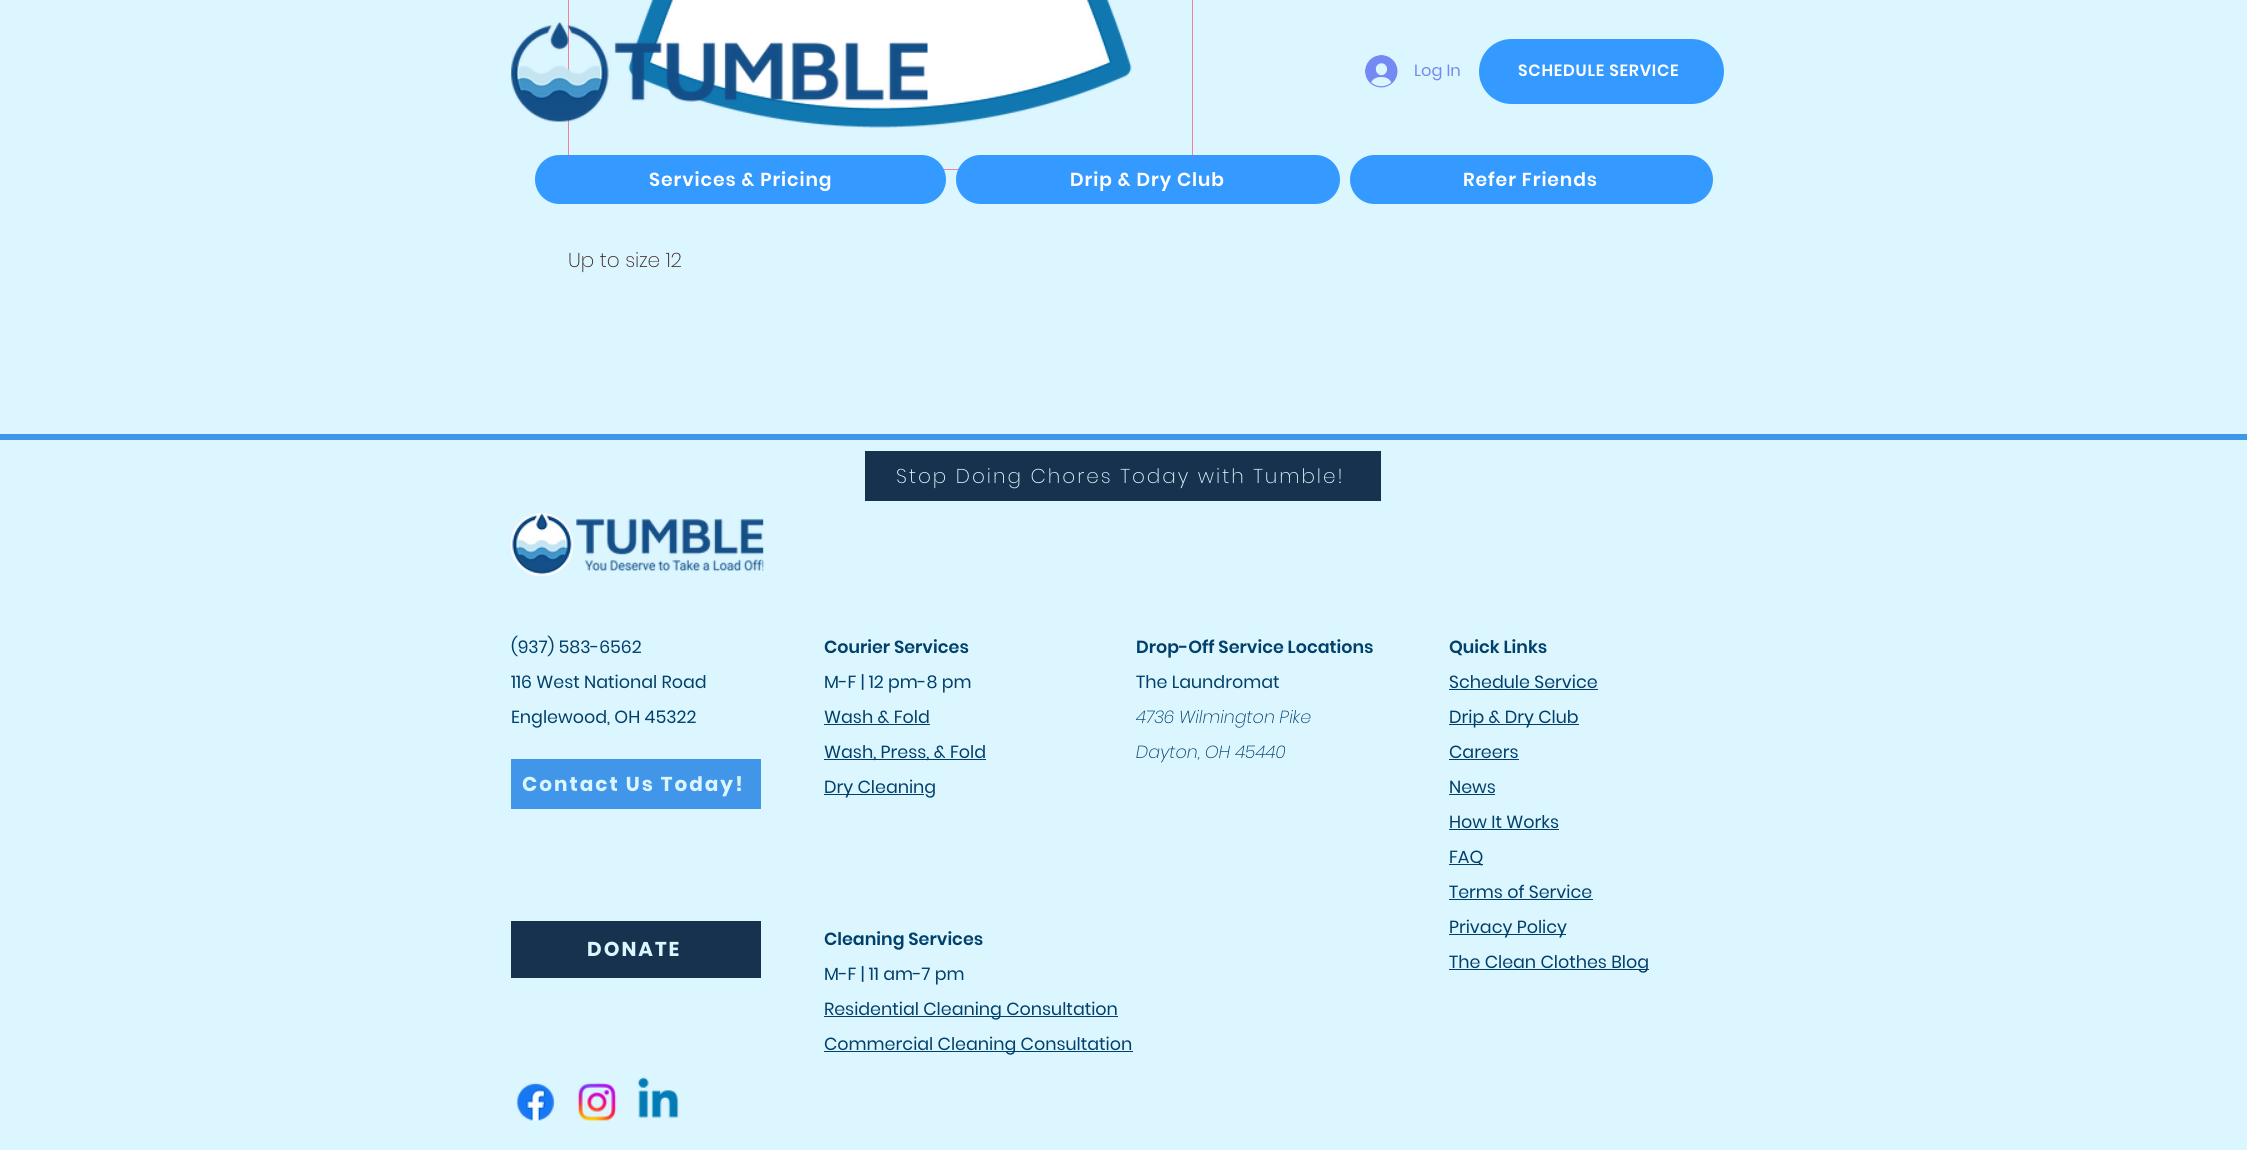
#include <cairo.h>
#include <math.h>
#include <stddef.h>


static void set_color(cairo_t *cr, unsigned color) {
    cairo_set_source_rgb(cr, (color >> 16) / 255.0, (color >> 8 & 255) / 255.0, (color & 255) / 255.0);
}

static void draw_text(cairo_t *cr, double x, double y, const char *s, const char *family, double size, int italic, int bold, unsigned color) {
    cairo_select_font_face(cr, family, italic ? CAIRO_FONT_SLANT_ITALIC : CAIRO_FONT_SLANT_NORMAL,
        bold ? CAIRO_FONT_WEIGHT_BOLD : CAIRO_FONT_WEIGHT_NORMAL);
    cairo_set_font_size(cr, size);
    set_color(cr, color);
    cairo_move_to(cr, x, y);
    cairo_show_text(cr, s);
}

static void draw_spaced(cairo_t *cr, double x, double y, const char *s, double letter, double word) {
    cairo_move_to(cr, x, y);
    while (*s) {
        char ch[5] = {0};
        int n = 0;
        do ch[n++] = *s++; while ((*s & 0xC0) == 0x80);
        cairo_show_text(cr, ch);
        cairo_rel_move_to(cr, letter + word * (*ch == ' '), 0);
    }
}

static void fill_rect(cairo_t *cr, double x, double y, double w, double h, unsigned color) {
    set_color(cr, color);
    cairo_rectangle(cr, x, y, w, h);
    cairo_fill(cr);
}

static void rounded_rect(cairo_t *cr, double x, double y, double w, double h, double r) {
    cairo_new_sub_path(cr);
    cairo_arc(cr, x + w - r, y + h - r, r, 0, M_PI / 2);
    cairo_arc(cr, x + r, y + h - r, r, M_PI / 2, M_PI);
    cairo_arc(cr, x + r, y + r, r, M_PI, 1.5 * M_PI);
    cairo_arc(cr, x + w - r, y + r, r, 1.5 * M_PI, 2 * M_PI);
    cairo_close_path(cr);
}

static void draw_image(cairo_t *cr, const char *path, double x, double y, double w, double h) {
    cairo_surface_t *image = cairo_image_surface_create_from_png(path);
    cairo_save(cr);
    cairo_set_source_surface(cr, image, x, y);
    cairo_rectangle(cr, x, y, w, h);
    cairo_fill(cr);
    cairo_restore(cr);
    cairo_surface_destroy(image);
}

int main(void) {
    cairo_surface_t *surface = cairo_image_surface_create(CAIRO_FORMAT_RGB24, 2247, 1150);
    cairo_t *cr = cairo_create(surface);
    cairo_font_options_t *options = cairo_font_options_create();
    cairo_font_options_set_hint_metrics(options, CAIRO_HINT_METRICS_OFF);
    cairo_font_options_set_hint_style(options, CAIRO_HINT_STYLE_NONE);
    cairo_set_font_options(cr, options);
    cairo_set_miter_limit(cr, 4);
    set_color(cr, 0xDCF6FF);
    cairo_paint(cr);
    cairo_rectangle(cr, 568.5, -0.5, 624, 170);
    set_color(cr, 0xF28495);
    cairo_set_line_width(cr, 1);
    cairo_stroke(cr);
    draw_image(cr, "assets/img3.png", 628, 0, 504, 128);
    draw_image(cr, "assets/img1.png", 511, 22, 417, 100);
    draw_image(cr, "assets/img2.png", 1365, 55, 33, 33);
    draw_text(cr, 1414, 76, "Log In", "Poppins", 16.25, 0, 0, 0x7589F4);
    set_color(cr, 0x359AFF);
    rounded_rect(cr, 1479, 39, 245, 65, 32.5);
    cairo_fill(cr);
    cairo_select_font_face(cr, "Poppins SemiBold", CAIRO_FONT_SLANT_NORMAL, CAIRO_FONT_WEIGHT_NORMAL);
    set_color(cr, 0xFFFFFF);
    draw_spaced(cr, 1518, 76, "SCHEDULE SERVICE", 0.75, 0);
    set_color(cr, 0x359AFF);
    rounded_rect(cr, 535, 155, 411, 49, 24.5);
    cairo_fill(cr);
    cairo_set_font_size(cr, 18.75);
    set_color(cr, 0xFFFFFF);
    draw_spaced(cr, 649, 186, "Services & Pricing", 0.9, 0);
    set_color(cr, 0x359AFF);
    rounded_rect(cr, 956, 155, 384, 49, 24.5);
    cairo_fill(cr);
    set_color(cr, 0xFFFFFF);
    draw_spaced(cr, 1070, 186, "Drip & Dry Club", 0.9, 0);
    set_color(cr, 0x359AFF);
    rounded_rect(cr, 1350, 155, 363, 49, 24.5);
    cairo_fill(cr);
    set_color(cr, 0xFFFFFF);
    draw_spaced(cr, 1463, 186, "Refer Friends", 0.9, 0);
    draw_text(cr, 568, 267, "Up to size 12", "Poppins ExtraLight", 20, 0, 0, 0x3C2125);
    fill_rect(cr, 0, 434, 2247, 6, 0x4296EA);
    fill_rect(cr, 865, 451, 516, 50, 0x16324E);
    set_color(cr, 0xDCF6FF);
    draw_spaced(cr, 896, 483, "Stop Doing Chores Today with Tumble!", 2, 0);
    draw_image(cr, "assets/img4.png", 510, 513, 64, 64);
    draw_image(cr, "assets/img5.png", 576, 518, 188, 54);
    draw_text(cr, 511, 653, "(937) 583-6562", "Poppins", 17.5, 0, 0, 0x00406B);
    draw_text(cr, 511, 688, "116 West National Road", "Poppins", 17.5, 0, 0, 0x00406B);
    draw_text(cr, 511, 723, "Englewood, OH 45322", "Poppins", 17.5, 0, 0, 0x00406B);
    draw_text(cr, 824, 653, "Courier Services", "Poppins SemiBold", 17.5, 0, 0, 0x00406B);
    draw_text(cr, 824, 688, "M-F | 12 pm-8 pm", "Poppins", 17.5, 0, 0, 0x00406B);
    draw_text(cr, 824, 723, "Wash & Fold", "Poppins", 17.5, 0, 0, 0x00406B);
    fill_rect(cr, 824, 724, 106, 1, 0x00406B);
    fill_rect(cr, 824, 759, 162, 1, 0x00406B);
    draw_text(cr, 824, 758, "Wash, Press, & Fold", "Poppins", 17.5, 0, 0, 0x00406B);
    fill_rect(cr, 824, 794, 100, 1, 0x00406B);
    draw_text(cr, 824, 793, "Dry Cleaning", "Poppins", 17.5, 0, 0, 0x00406B);
    draw_text(cr, 1136, 653, "Drop-Off Service Locations", "Poppins SemiBold", 17.5, 0, 0, 0x00406B);
    draw_text(cr, 1136, 688, "The Laundromat", "Poppins", 17.5, 0, 0, 0x00406B);
    draw_text(cr, 1136, 723, "4736 Wilmington Pike", "Poppins ExtraLight", 17.5, 1, 0, 0x00406B);
    draw_text(cr, 1136, 758, "Dayton, OH 45440", "Poppins ExtraLight", 17.5, 1, 0, 0x00406B);
    draw_text(cr, 1449, 653, "Quick Links", "Poppins SemiBold", 17.5, 0, 0, 0x00406B);
    draw_text(cr, 1449, 688, "Schedule Service", "Poppins", 17.5, 0, 0, 0x00406B);
    fill_rect(cr, 1449, 689, 149, 1, 0x00406B);
    fill_rect(cr, 1449, 724, 130, 1, 0x00406B);
    draw_text(cr, 1449, 723, "Drip & Dry Club", "Poppins", 17.5, 0, 0, 0x00406B);
    draw_text(cr, 1449, 758, "Careers", "Poppins", 17.5, 0, 0, 0x00406B);
    fill_rect(cr, 1449, 759, 70, 1, 0x00406B);
    draw_text(cr, 1449, 793, "News", "Poppins", 17.5, 0, 0, 0x00406B);
    fill_rect(cr, 1449, 794, 46, 1, 0x00406B);
    draw_text(cr, 1449, 828, "How It Works", "Poppins", 17.5, 0, 0, 0x00406B);
    fill_rect(cr, 1449, 829, 110, 1, 0x00406B);
    fill_rect(cr, 1449, 864, 34, 1, 0x00406B);
    draw_text(cr, 1449, 863, "FAQ", "Poppins", 17.5, 0, 0, 0x00406B);
    draw_text(cr, 1449, 898, "Terms of Service", "Poppins", 17.5, 0, 0, 0x00406B);
    fill_rect(cr, 1449, 899, 144, 1, 0x00406B);
    fill_rect(cr, 1449, 934, 117, 1, 0x00406B);
    draw_text(cr, 1449, 933, "Privacy Policy", "Poppins", 17.5, 0, 0, 0x00406B);
    fill_rect(cr, 1449, 969, 200, 1, 0x00406B);
    draw_text(cr, 1449, 968, "The Clean Clothes Blog", "Poppins", 17.5, 0, 0, 0x00406B);
    fill_rect(cr, 511, 759, 250, 50, 0x4296EA);
    cairo_select_font_face(cr, "Poppins", CAIRO_FONT_SLANT_NORMAL, CAIRO_FONT_WEIGHT_BOLD);
    cairo_set_font_size(cr, 20);
    set_color(cr, 0xDCF6FF);
    draw_spaced(cr, 522, 791, "Contact Us Today!", 2, 0);
    fill_rect(cr, 511, 921, 250, 57, 0x16324E);
    set_color(cr, 0xDCF6FF);
    draw_spaced(cr, 587, 956, "DONATE", 2, 0);
    draw_text(cr, 824, 945, "Cleaning Services", "Poppins SemiBold", 17.5, 0, 0, 0x00406B);
    draw_text(cr, 824, 980, "M-F | 11 am-7 pm", "Poppins", 17.5, 0, 0, 0x00406B);
    fill_rect(cr, 824, 1016, 294, 1, 0x00406B);
    draw_text(cr, 824, 1015, "Residential Cleaning Consultation", "Poppins", 17.5, 0, 0, 0x00406B);
    fill_rect(cr, 824, 1051, 309, 1, 0x00406B);
    draw_text(cr, 824, 1050, "Commercial Cleaning Consultation", "Poppins", 17.5, 0, 0, 0x00406B);
    draw_image(cr, "assets/img6.png", 516, 1082, 39, 39);
    draw_image(cr, "assets/img7.png", 577, 1082, 40, 40);
    draw_image(cr, "assets/img8.png", 637, 1077, 42, 41);
    cairo_surface_write_to_png(surface, "output.png");
    cairo_font_options_destroy(options);
    cairo_destroy(cr);
    cairo_surface_destroy(surface);
    return 0;
}
